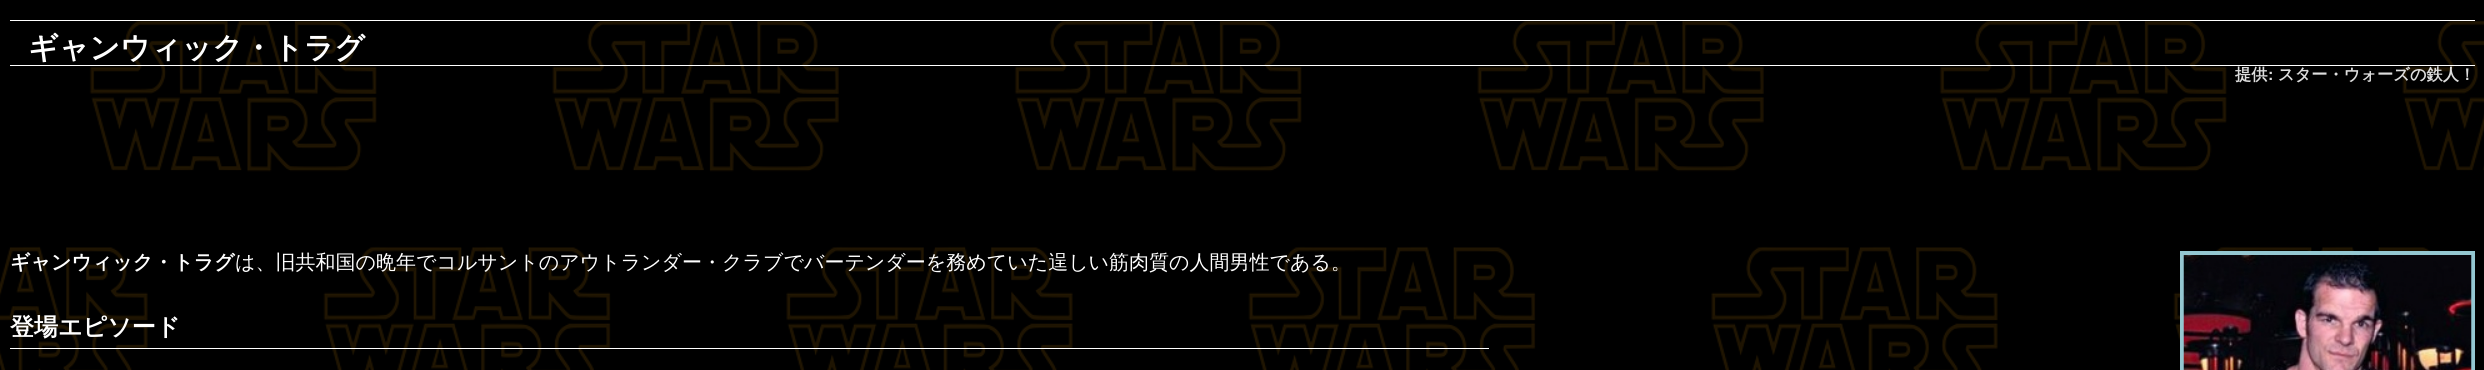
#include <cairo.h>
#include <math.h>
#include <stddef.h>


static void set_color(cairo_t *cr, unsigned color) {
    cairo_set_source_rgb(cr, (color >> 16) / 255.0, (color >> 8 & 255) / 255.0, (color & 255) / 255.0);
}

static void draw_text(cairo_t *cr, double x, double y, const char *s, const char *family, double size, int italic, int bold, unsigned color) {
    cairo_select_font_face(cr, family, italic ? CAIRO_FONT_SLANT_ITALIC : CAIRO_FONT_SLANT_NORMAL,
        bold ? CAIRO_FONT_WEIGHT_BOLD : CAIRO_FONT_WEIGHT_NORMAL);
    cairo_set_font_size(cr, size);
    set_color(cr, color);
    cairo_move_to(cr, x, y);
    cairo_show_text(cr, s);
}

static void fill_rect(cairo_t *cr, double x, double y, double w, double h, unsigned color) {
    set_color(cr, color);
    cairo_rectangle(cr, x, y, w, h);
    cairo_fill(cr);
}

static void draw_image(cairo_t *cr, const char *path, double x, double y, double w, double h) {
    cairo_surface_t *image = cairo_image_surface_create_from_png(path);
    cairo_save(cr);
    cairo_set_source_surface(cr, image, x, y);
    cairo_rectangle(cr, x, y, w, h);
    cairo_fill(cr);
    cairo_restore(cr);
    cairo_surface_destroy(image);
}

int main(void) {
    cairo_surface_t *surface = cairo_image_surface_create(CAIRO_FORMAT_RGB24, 2484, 370);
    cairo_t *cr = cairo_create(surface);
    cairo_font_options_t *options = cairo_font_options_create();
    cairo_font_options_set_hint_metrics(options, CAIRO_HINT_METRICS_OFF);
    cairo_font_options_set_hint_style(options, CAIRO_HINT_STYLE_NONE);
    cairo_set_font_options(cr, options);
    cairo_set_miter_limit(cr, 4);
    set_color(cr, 0x000000);
    cairo_paint(cr);
    draw_image(cr, "assets/img1.png", 0, 21, 2484, 349);
    fill_rect(cr, 10, 20, 2465, 1, 0xFFFFFF);
    fill_rect(cr, 10, 65, 2465, 1, 0xFFFFFF);
    draw_text(cr, 28, 58, "ギャンウィック・トラグ", "WenQuanYi Zen Hei", 30, 0, 1, 0xFFFFFF);
    draw_text(cr, 2235, 80, "提供", "WenQuanYi Zen Hei", 16.25, 0, 1, 0xDDDDDD);
    draw_text(cr, 2268, 80, ":", "Liberation Sans", 16.25, 0, 1, 0xDDDDDD);
    draw_text(cr, 2278, 80, "スター・ウォーズの鉄人！", "WenQuanYi Zen Hei", 16.25, 0, 1, 0xDDDDDD);
    draw_text(cr, 10, 269, "ギャンウィック・トラグ", "WenQuanYi Zen Hei", 20, 0, 1, 0xFFFFFF);
    draw_text(cr, 235, 269, "は、旧共和国の晩年でコルサントのアウトランダー・クラブでバーテンダーを務めていた逞しい筋肉質の人間男性である。", "WenQuanYi Zen Hei Medium", 20, 0, 0, 0xFFFFFF);
    cairo_rectangle(cr, 2182, 253, 291, 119);
    set_color(cr, 0x94C7D1);
    cairo_set_line_width(cr, 4);
    cairo_stroke(cr);
    draw_image(cr, "assets/img2.png", 2183, 255, 289, 115);
    fill_rect(cr, 10, 348, 1479, 1, 0xFFFFFF);
    draw_text(cr, 10, 335, "登場エピソード", "WenQuanYi Zen Hei", 24, 0, 1, 0xFFFFFF);
    cairo_surface_write_to_png(surface, "output.png");
    cairo_font_options_destroy(options);
    cairo_destroy(cr);
    cairo_surface_destroy(surface);
    return 0;
}
